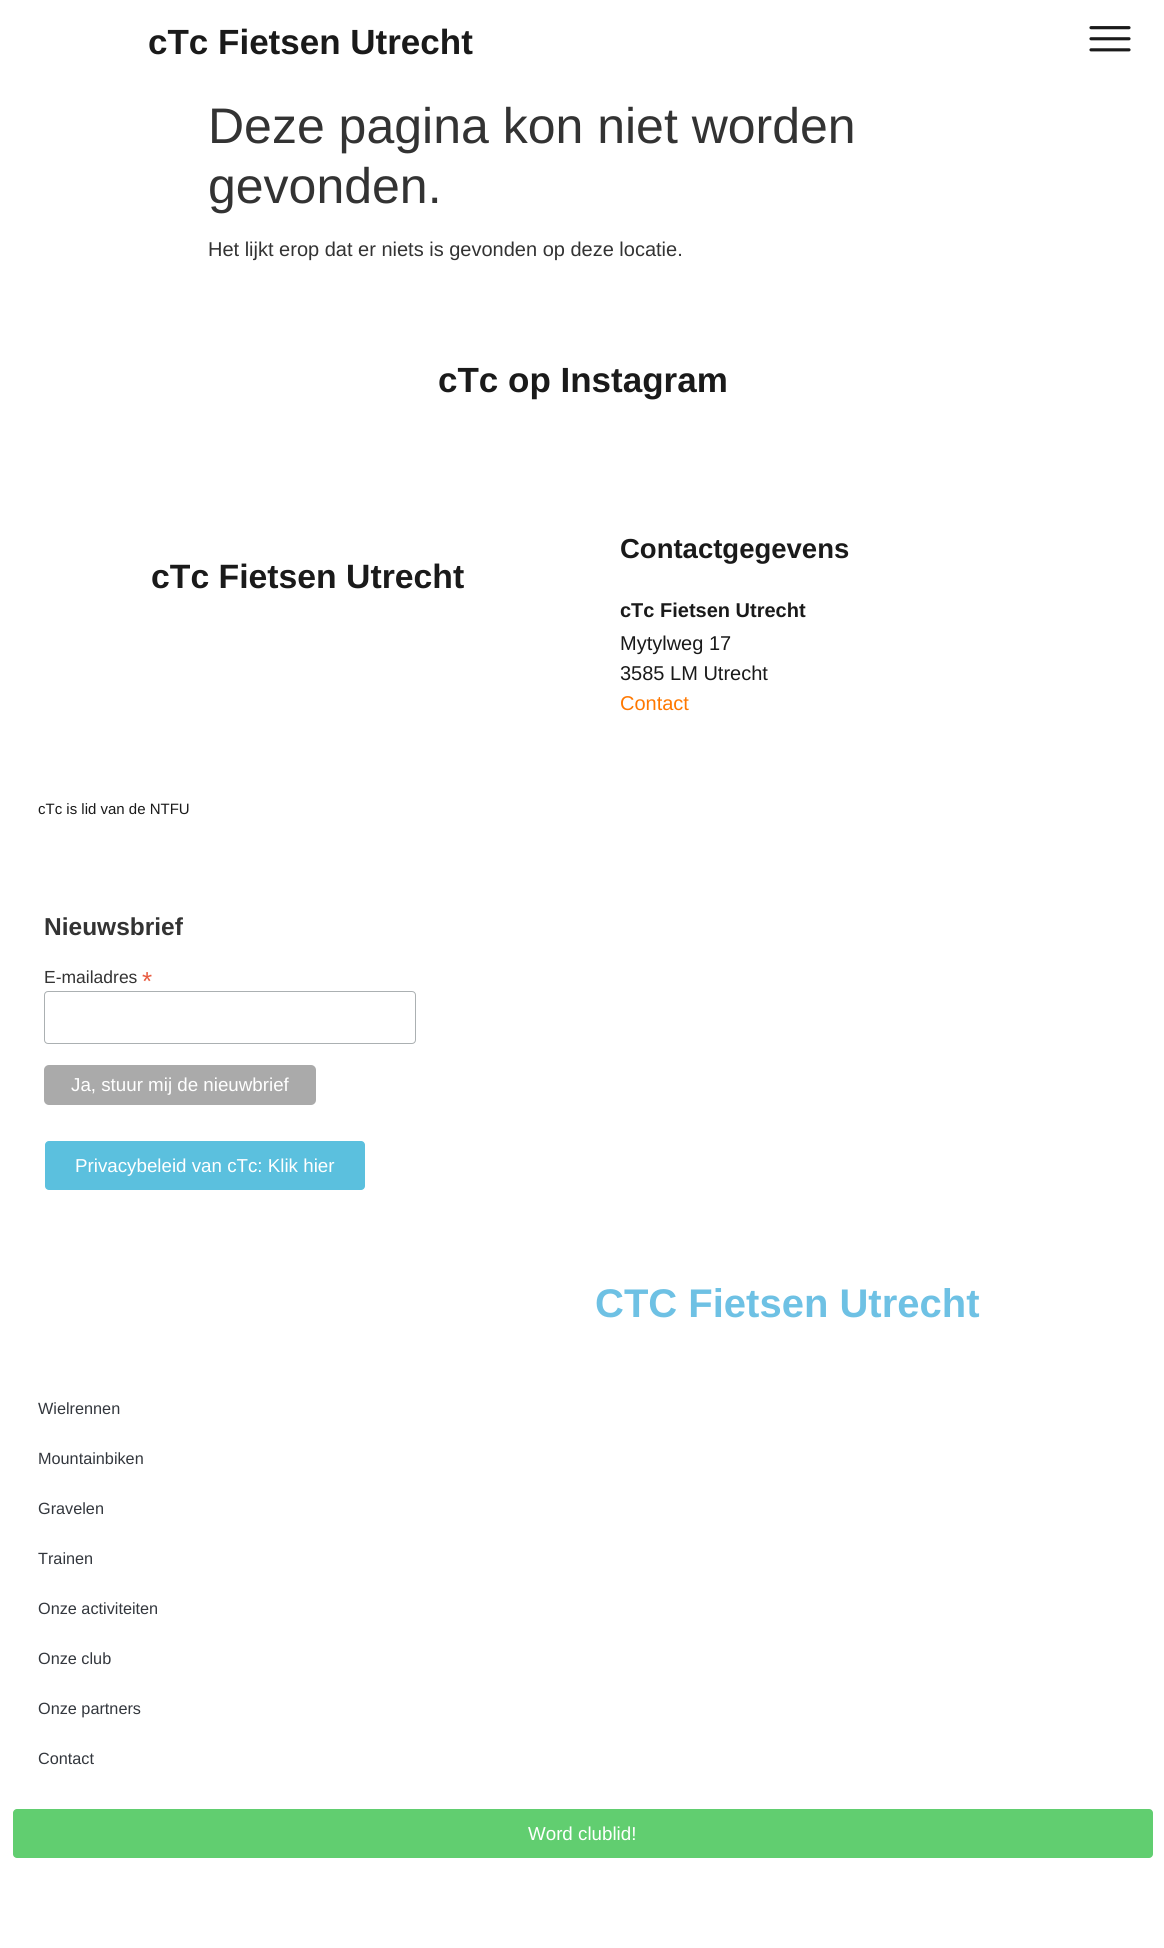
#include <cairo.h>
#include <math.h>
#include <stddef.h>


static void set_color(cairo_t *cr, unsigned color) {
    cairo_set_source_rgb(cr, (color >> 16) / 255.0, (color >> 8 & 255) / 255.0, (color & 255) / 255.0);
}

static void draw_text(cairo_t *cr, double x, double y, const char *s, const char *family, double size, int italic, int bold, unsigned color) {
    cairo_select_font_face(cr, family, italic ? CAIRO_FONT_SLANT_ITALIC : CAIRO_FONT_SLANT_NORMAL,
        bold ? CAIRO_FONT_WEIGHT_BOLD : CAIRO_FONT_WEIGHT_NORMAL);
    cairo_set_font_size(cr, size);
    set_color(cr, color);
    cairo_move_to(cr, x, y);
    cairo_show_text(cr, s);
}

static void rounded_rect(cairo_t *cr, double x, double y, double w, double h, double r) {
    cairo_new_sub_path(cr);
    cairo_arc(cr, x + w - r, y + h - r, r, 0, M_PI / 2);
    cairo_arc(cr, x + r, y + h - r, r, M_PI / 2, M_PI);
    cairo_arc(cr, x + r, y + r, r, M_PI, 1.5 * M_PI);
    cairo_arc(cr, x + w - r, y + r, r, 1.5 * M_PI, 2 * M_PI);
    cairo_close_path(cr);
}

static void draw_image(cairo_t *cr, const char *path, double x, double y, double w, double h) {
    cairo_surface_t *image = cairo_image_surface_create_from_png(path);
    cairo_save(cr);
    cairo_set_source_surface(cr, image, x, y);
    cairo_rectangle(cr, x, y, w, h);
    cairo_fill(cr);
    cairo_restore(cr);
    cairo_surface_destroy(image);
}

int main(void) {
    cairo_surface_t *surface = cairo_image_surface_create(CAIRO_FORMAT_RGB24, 1164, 1948);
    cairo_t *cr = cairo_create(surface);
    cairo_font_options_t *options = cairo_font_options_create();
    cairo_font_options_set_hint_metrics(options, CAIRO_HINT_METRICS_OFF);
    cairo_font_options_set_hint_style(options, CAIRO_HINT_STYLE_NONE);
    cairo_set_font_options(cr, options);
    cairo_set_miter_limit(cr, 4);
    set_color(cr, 0xFFFFFF);
    cairo_paint(cr);
    draw_text(cr, 148, 54, "cTc Fietsen Utrecht", "Liberation Sans", 35, 0, 1, 0x1A1A1A);
    draw_image(cr, "assets/img1.png", 1089, 26, 42, 26);
    draw_text(cr, 208, 143, "Deze pagina kon niet worden", "Liberation Sans", 50, 0, 0, 0x333333);
    draw_text(cr, 208, 203, "gevonden.", "Liberation Sans", 50, 0, 0, 0x333333);
    draw_text(cr, 208, 256, "Het lijkt erop dat er niets is gevonden op deze locatie.", "Liberation Sans", 20, 0, 0, 0x333333);
    draw_text(cr, 438, 392, "cTc op Instagram", "Liberation Sans", 35, 0, 1, 0x1A1A1A);
    draw_text(cr, 151, 588, "cTc Fietsen Utrecht", "Liberation Sans", 33.75, 0, 1, 0x1A1A1A);
    draw_text(cr, 38, 814, "cTc is lid van de NTFU", "Liberation Sans", 15, 0, 0, 0x1A1A1A);
    draw_text(cr, 620, 558, "Contactgegevens", "Liberation Sans", 27.5, 0, 1, 0x1A1A1A);
    draw_text(cr, 620, 617, "cTc Fietsen Utrecht", "Liberation Sans", 20, 0, 1, 0x1A1A1A);
    draw_text(cr, 620, 650, "Mytylweg 17", "Liberation Sans", 20, 0, 0, 0x1A1A1A);
    draw_text(cr, 620, 680, "3585 LM Utrecht", "Liberation Sans", 20, 0, 0, 0x1A1A1A);
    draw_text(cr, 620, 710, "Contact", "Liberation Sans", 20, 0, 0, 0xFF7800);
    draw_text(cr, 44, 935, "Nieuwsbrief", "Liberation Sans", 24.5, 0, 1, 0x333333);
    draw_text(cr, 44, 983, "E-mailadres", "Liberation Sans", 17.5, 0, 0, 0x333333);
    draw_text(cr, 142, 990, "*", "Liberation Sans", 26, 0, 0, 0xE85C41);
    rounded_rect(cr, 44.5, 991.5, 371, 52, 3.5);
    set_color(cr, 0xABB0B2);
    cairo_set_line_width(cr, 1);
    cairo_stroke(cr);
    set_color(cr, 0xAAAAAA);
    rounded_rect(cr, 44, 1065, 272, 40, 5);
    cairo_fill(cr);
    draw_text(cr, 71, 1091, "Ja, stuur mij de nieuwbrief", "Liberation Sans", 18.75, 0, 0, 0xFFFFFF);
    set_color(cr, 0x5BC0DE);
    rounded_rect(cr, 45, 1141, 320, 49, 4);
    cairo_fill(cr);
    draw_text(cr, 75, 1172, "Privacybeleid van cTc: Klik hier", "Liberation Sans", 18.75, 0, 0, 0xFFFFFF);
    draw_text(cr, 595, 1317, "CTC Fietsen Utrecht", "Liberation Sans", 40, 0, 1, 0x6EC1E4);
    draw_text(cr, 38, 1414, "Wielrennen", "Liberation Sans", 16.25, 0, 0, 0x33373D);
    draw_text(cr, 38, 1464, "Mountainbiken", "Liberation Sans", 16.25, 0, 0, 0x33373D);
    draw_text(cr, 38, 1514, "Gravelen", "Liberation Sans", 16.25, 0, 0, 0x33373D);
    draw_text(cr, 38, 1564, "Trainen", "Liberation Sans", 16.25, 0, 0, 0x33373D);
    draw_text(cr, 38, 1614, "Onze activiteiten", "Liberation Sans", 16.25, 0, 0, 0x33373D);
    draw_text(cr, 38, 1664, "Onze club", "Liberation Sans", 16.25, 0, 0, 0x33373D);
    draw_text(cr, 38, 1714, "Onze partners", "Liberation Sans", 16.25, 0, 0, 0x33373D);
    draw_text(cr, 38, 1764, "Contact", "Liberation Sans", 16.25, 0, 0, 0x33373D);
    set_color(cr, 0x61CE70);
    rounded_rect(cr, 13, 1809, 1140, 49, 4);
    cairo_fill(cr);
    draw_text(cr, 528, 1840, "Word clublid!", "Liberation Sans", 18.75, 0, 0, 0xFFFFFF);
    cairo_surface_write_to_png(surface, "output.png");
    cairo_font_options_destroy(options);
    cairo_destroy(cr);
    cairo_surface_destroy(surface);
    return 0;
}
